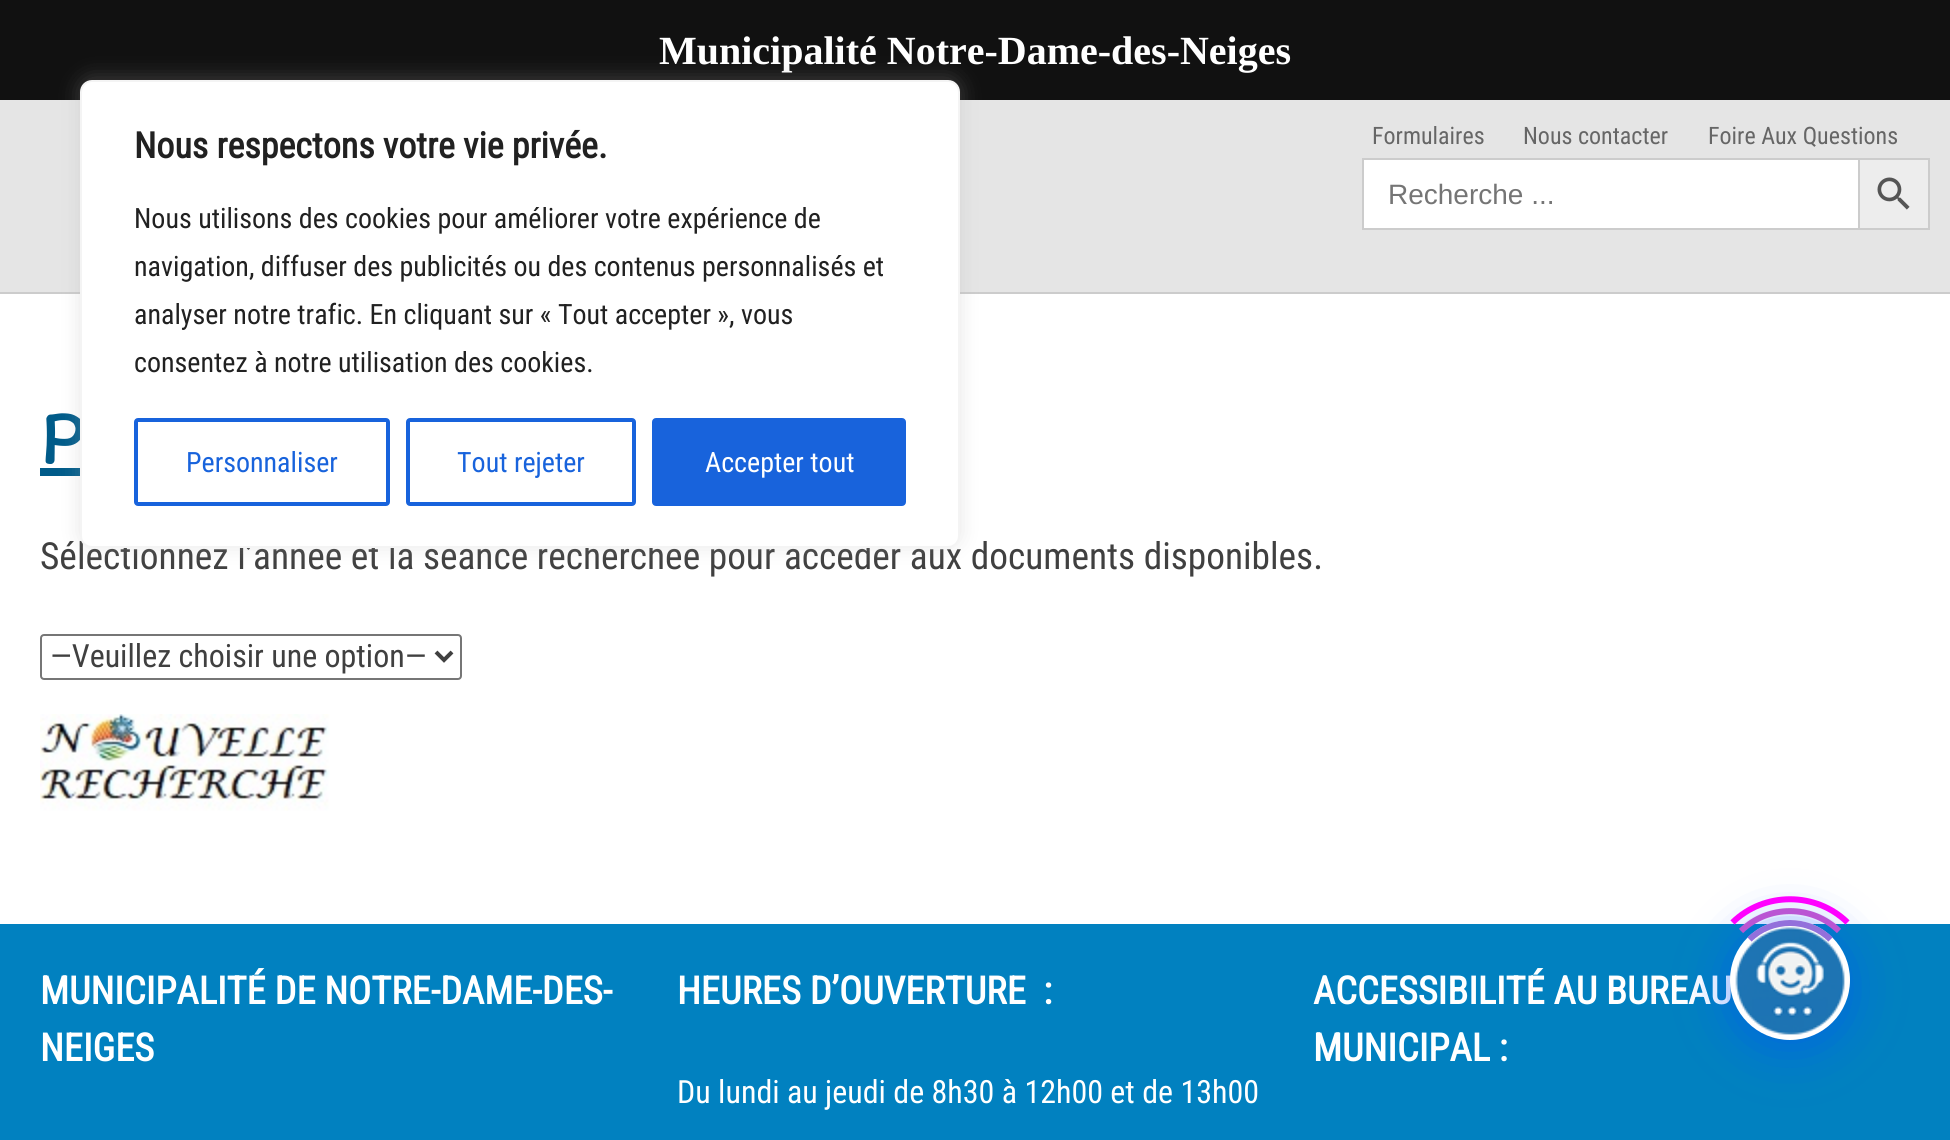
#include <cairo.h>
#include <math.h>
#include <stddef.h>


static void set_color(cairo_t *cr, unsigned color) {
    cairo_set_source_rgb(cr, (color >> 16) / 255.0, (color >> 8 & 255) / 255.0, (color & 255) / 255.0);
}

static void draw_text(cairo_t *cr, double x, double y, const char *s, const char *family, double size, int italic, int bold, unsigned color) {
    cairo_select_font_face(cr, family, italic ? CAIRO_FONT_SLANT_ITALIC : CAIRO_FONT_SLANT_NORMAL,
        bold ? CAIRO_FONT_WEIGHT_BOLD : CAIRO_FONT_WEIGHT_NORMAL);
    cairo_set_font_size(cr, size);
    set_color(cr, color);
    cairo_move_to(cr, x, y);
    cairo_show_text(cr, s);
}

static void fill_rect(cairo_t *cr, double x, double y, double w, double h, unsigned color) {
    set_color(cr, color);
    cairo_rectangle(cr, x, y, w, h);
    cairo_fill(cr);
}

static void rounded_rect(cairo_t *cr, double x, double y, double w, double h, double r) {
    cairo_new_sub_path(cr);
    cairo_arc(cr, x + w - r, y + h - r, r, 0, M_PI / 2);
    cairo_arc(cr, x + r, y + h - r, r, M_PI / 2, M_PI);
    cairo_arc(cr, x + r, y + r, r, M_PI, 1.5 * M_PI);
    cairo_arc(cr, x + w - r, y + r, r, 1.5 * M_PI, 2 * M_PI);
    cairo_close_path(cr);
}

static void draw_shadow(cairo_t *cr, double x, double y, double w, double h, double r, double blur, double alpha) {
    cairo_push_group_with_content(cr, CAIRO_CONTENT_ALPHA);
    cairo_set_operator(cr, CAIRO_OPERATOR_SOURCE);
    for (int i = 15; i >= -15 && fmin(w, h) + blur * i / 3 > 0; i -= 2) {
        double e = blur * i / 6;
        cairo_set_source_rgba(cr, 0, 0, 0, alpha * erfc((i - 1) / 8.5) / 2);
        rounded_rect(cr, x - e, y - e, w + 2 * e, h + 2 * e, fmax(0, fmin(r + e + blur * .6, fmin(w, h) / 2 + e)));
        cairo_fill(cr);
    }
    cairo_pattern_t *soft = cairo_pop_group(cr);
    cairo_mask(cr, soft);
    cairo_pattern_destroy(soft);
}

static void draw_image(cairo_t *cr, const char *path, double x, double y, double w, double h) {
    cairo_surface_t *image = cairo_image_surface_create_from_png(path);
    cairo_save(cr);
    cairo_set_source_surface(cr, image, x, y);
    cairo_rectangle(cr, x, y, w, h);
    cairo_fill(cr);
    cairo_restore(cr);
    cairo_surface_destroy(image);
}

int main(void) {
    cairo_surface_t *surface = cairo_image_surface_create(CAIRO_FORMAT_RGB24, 1950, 1140);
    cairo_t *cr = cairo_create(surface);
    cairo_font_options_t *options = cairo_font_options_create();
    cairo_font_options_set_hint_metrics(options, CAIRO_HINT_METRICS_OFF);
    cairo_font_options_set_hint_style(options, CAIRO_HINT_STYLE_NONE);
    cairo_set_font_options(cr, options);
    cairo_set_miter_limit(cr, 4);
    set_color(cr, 0xFFFFFF);
    cairo_paint(cr);
    fill_rect(cr, 0, 0, 1950, 100, 0x111111);
    draw_text(cr, 659, 64, "Municipalité Notre-Dame-des-Neiges", "Liberation Serif", 40, 0, 1, 0xFFFFFF);
    fill_rect(cr, 0, 100, 1950, 192, 0xE5E5E5);
    fill_rect(cr, 0, 292, 1950, 2, 0xCCCCCC);
    draw_text(cr, 1372, 144, "Formulaires", "Roboto Condensed", 24, 0, 0, 0x666666);
    draw_text(cr, 1523, 144, "Nous contacter", "Roboto Condensed", 24, 0, 0, 0x666666);
    draw_text(cr, 1708, 144, "Foire Aux Questions", "Roboto Condensed", 24, 0, 0, 0x666666);
    fill_rect(cr, 1364, 160, 494, 68, 0xFFFFFF);
    fill_rect(cr, 1362, 158, 496, 2, 0xCCCCCC);
    fill_rect(cr, 1362, 228, 496, 2, 0xCCCCCC);
    fill_rect(cr, 1362, 158, 2, 72, 0xCCCCCC);
    draw_text(cr, 1388, 204, "Recherche ...", "Liberation Sans", 28, 0, 0, 0x757575);
    set_color(cr, 0xEDEDED);
    cairo_rectangle(cr, 1859, 159, 70, 70);
    cairo_fill_preserve(cr);
    set_color(cr, 0xCCCCCC);
    cairo_stroke(cr);
    draw_image(cr, "assets/img1.png", 1877, 177, 33, 33);
    draw_text(cr, 40, 464, "P", "Itim", 80, 0, 0, 0x005B89);
    fill_rect(cr, 40, 468, 40, 8, 0x005B89);
    draw_text(cr, 40, 569, "Sélectionnez l’année et la séance recherchée pour accéder aux documents disponibles.", "Roboto Condensed", 37.35, 0, 0, 0x404040);
    rounded_rect(cr, 41, 635, 420, 44, 3);
    set_color(cr, 0x767676);
    cairo_stroke(cr);
    cairo_new_path(cr);
    cairo_move_to(cr, 436, 652);
    cairo_line_to(cr, 444, 660);
    cairo_line_to(cr, 452, 652);
    set_color(cr, 0x404040);
    cairo_set_line_width(cr, 4);
    cairo_stroke(cr);
    draw_text(cr, 50, 667, "—Veuillez choisir une option—", "Roboto Condensed", 32, 0, 0, 0x404040);
    draw_image(cr, "assets/img2.png", 40, 714, 290, 97);
    fill_rect(cr, 0, 924, 1950, 216, 0x0181C0);
    draw_text(cr, 40, 1004, "MUNICIPALITÉ DE NOTRE-DAME-DES-", "Roboto Condensed", 38.4, 0, 1, 0xFFFFFF);
    draw_text(cr, 40, 1061, "NEIGES", "Roboto Condensed", 38.4, 0, 1, 0xFFFFFF);
    draw_text(cr, 677, 1004, "HEURES D’OUVERTURE  :", "Roboto Condensed", 38.4, 0, 1, 0xFFFFFF);
    draw_text(cr, 677, 1103, "Du lundi au jeudi de 8h30 à 12h00 et de 13h00", "Roboto Condensed", 32, 0, 0, 0xFFFFFF);
    draw_text(cr, 1313, 1004, "ACCESSIBILITÉ AU BUREAU", "Roboto Condensed", 38.4, 0, 1, 0xFFFFFF);
    draw_text(cr, 1313, 1061, "MUNICIPAL :", "Roboto Condensed", 38.4, 0, 1, 0xFFFFFF);
    set_color(cr, 0x004DFF);
    draw_shadow(cr, 1730, 928, 120, 120, 60, 24, 0.5);
    set_color(cr, 0xFFFFFF);
    cairo_arc(cr, 1790, 980, 60, 0, 2 * M_PI);
    cairo_fill(cr);
    draw_image(cr, "assets/img3.png", 1735, 927, 110, 108);
    cairo_new_path(cr);
    cairo_move_to(cr, 1749.5, 939.5);
    cairo_curve_to(cr, 1771.5, 917.5, 1808.5, 917.5, 1830.5, 939.5);
    set_color(cr, 0x9370DB);
    cairo_set_line_width(cr, 6);
    cairo_stroke(cr);
    cairo_new_path(cr);
    cairo_move_to(cr, 1741, 931);
    cairo_curve_to(cr, 1768, 904.5, 1812, 904.5, 1839, 931);
    set_color(cr, 0xBA55D3);
    cairo_stroke(cr);
    cairo_new_path(cr);
    cairo_move_to(cr, 1732.5, 922.5);
    cairo_curve_to(cr, 1764, 891.5, 1816, 891.5, 1847.5, 922.5);
    set_color(cr, 0xFF00FF);
    cairo_stroke(cr);
    set_color(cr, 0xACABAB);
    draw_shadow(cr, 80, 78, 880, 468, 12, 10, 0.3);
    set_color(cr, 0xFFFFFF);
    rounded_rect(cr, 81, 81, 878, 466, 11);
    cairo_fill_preserve(cr);
    set_color(cr, 0xF4F4F4);
    cairo_set_line_width(cr, 2);
    cairo_stroke(cr);
    draw_text(cr, 134, 158, "Nous respectons votre vie privée.", "Roboto Condensed", 36, 0, 1, 0x212121);
    draw_text(cr, 134, 228, "Nous utilisons des cookies pour améliorer votre expérience de", "Roboto Condensed", 28, 0, 0, 0x212121);
    draw_text(cr, 134, 276, "navigation, diffuser des publicités ou des contenus personnalisés et", "Roboto Condensed", 28, 0, 0, 0x212121);
    draw_text(cr, 134, 324, "analyser notre trafic. En cliquant sur « Tout accepter », vous", "Roboto Condensed", 28, 0, 0, 0x212121);
    draw_text(cr, 134, 372, "consentez à notre utilisation des cookies.", "Roboto Condensed", 28, 0, 0, 0x212121);
    rounded_rect(cr, 136, 420, 252, 84, 2);
    set_color(cr, 0x1863DC);
    cairo_set_line_width(cr, 4);
    cairo_stroke(cr);
    draw_text(cr, 186, 472, "Personnaliser", "Roboto Condensed", 28, 0, 0, 0x1863DC);
    rounded_rect(cr, 408, 420, 226, 84, 2);
    cairo_stroke(cr);
    draw_text(cr, 457, 472, "Tout rejeter", "Roboto Condensed", 28, 0, 0, 0x1863DC);
    rounded_rect(cr, 654, 420, 250, 84, 2);
    cairo_fill_preserve(cr);
    cairo_stroke(cr);
    draw_text(cr, 705, 472, "Accepter tout", "Roboto Condensed", 28, 0, 0, 0xFFFFFF);
    cairo_surface_write_to_png(surface, "output.png");
    cairo_font_options_destroy(options);
    cairo_destroy(cr);
    cairo_surface_destroy(surface);
    return 0;
}
